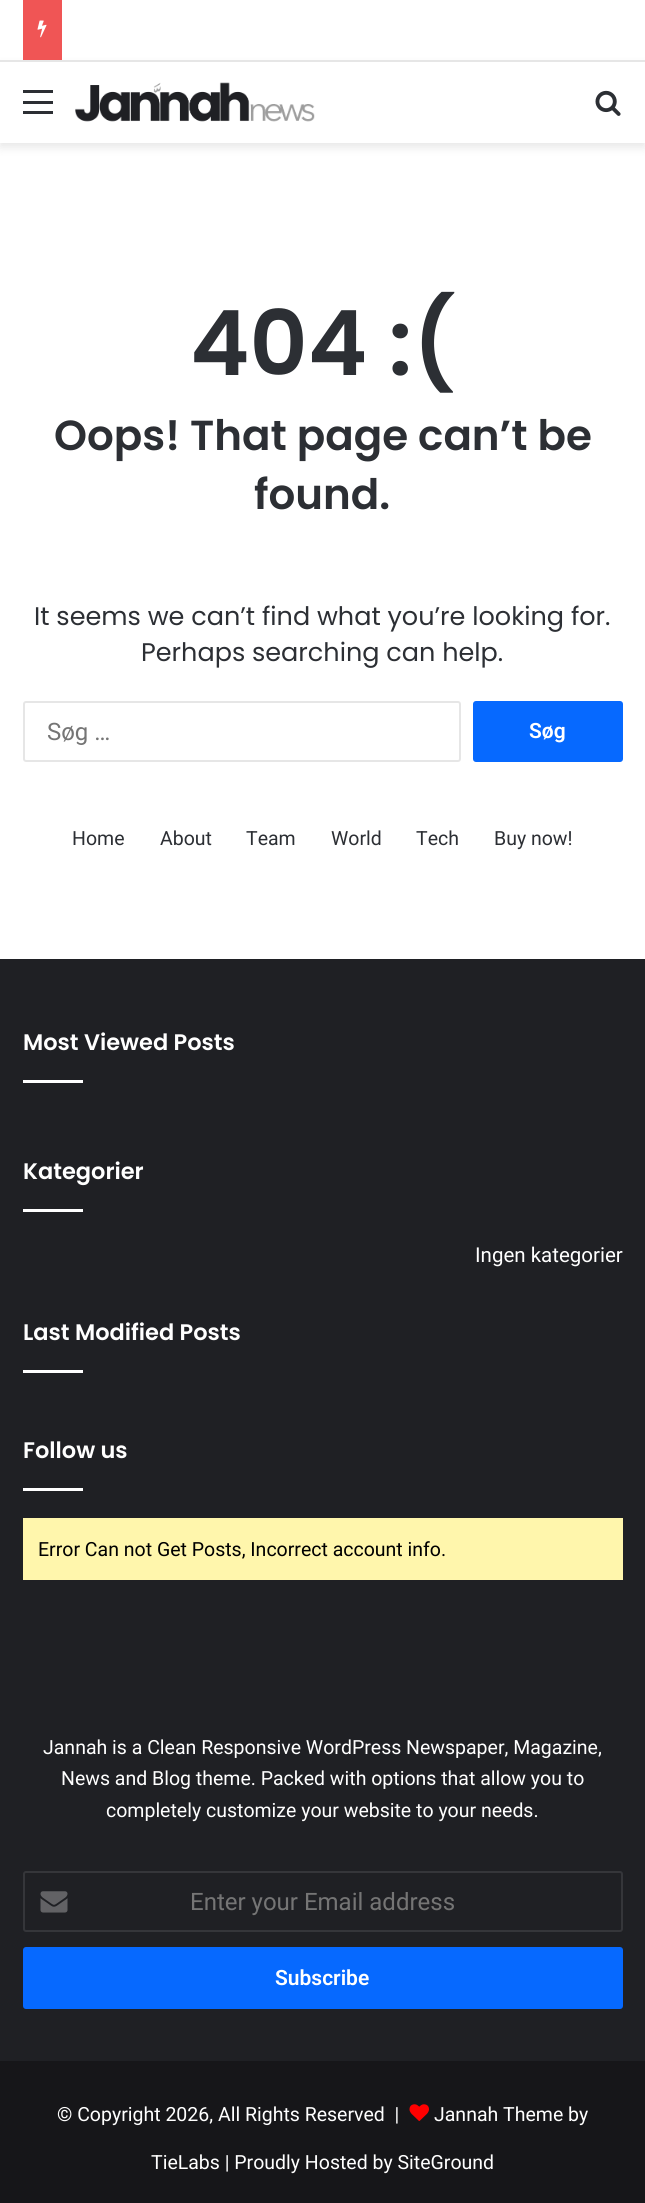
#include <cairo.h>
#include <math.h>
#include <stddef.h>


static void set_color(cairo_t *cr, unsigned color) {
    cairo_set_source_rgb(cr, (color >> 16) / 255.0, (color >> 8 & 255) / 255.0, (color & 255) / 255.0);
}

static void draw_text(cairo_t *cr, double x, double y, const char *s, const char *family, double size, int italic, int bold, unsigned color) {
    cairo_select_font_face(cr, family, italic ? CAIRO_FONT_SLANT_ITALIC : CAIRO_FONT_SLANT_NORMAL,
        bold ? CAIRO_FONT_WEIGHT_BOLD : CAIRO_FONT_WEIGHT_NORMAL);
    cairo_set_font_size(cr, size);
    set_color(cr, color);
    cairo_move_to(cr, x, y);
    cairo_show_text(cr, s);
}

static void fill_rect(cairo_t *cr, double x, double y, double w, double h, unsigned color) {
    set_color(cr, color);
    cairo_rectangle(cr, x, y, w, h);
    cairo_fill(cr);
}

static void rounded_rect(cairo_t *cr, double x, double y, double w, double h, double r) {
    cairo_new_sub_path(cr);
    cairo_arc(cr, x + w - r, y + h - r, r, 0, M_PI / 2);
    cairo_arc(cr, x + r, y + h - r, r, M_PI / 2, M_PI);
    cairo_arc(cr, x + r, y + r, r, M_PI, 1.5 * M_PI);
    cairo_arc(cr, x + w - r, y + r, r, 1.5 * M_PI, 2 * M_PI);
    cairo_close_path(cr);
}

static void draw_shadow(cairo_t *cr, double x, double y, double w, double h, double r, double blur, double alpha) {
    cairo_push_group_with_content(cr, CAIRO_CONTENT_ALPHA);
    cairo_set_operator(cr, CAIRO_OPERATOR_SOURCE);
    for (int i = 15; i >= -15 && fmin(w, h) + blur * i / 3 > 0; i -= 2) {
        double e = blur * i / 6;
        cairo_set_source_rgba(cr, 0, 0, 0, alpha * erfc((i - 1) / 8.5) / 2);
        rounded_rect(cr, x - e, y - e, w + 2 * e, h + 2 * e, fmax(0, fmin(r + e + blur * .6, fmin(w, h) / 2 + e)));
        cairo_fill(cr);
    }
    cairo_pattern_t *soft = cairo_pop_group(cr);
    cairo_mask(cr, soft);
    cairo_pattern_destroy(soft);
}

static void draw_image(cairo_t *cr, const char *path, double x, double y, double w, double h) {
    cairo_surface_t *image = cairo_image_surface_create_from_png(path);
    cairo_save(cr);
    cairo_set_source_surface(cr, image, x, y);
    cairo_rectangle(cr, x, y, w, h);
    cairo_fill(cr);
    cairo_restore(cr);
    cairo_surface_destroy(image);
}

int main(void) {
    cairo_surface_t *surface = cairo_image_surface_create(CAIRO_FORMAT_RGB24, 645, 2203);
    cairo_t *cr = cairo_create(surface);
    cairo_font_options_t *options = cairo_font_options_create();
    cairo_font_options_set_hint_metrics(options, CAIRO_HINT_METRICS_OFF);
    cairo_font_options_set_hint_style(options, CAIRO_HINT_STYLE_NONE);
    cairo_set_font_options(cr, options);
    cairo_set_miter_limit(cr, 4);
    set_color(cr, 0xFFFFFF);
    cairo_paint(cr);
    set_color(cr, 0x000000);
    draw_shadow(cr, 0, 66, 645, 81, 0, 5, 0.1);
    fill_rect(cr, 0, 60, 645, 2, 0xE6E6E6);
    fill_rect(cr, 23, 0, 39, 60, 0xF05555);
    draw_image(cr, "assets/img1.png", 37, 20, 10, 18);
    fill_rect(cr, 0, 62, 645, 81, 0xFFFFFF);
    fill_rect(cr, 23, 101, 30, 3, 0x2C2F34);
    fill_rect(cr, 23, 90, 30, 3, 0x2C2F34);
    fill_rect(cr, 23, 111, 30, 3, 0x2C2F34);
    draw_image(cr, "assets/img2.png", 75, 82, 240, 40);
    draw_image(cr, "assets/img3.png", 595, 90, 26, 26);
    draw_text(cr, 190, 375, "404 :(", "Poppins SemiBold", 90, 0, 0, 0x2C2F34);
    draw_text(cr, 54, 450, "Oops! That page can’t be", "Poppins SemiBold", 42, 0, 0, 0x2C2F34);
    draw_text(cr, 254, 509, "found.", "Poppins SemiBold", 42, 0, 0, 0x2C2F34);
    draw_text(cr, 34, 625, "It seems we can’t find what you’re looking for.", "Poppins", 25.5, 0, 0, 0x2C2F34);
    draw_text(cr, 141, 661, "Perhaps searching can help.", "Poppins", 25.5, 0, 0, 0x2C2F34);
    rounded_rect(cr, 24, 702, 436, 59, 2);
    set_color(cr, 0xE6E6E6);
    cairo_stroke(cr);
    draw_text(cr, 47, 740, "Søg …", "Roboto", 24, 0, 0, 0x757575);
    set_color(cr, 0x0669FF);
    rounded_rect(cr, 473, 701, 150, 61, 3);
    cairo_fill(cr);
    draw_text(cr, 529, 738, "Søg", "Roboto SemiBold", 21, 0, 0, 0xFFFFFF);
    draw_text(cr, 72, 845, "Home", "Roboto", 19.5, 0, 0, 0x2C2F34);
    draw_text(cr, 160, 845, "About", "Roboto", 19.5, 0, 0, 0x2C2F34);
    draw_text(cr, 246, 845, "Team", "Roboto", 19.5, 0, 0, 0x2C2F34);
    draw_text(cr, 331, 845, "World", "Roboto", 19.5, 0, 0, 0x2C2F34);
    draw_text(cr, 416, 845, "Tech", "Roboto", 19.5, 0, 0, 0x2C2F34);
    draw_text(cr, 494, 845, "Buy now!", "Roboto", 19.5, 0, 0, 0x2C2F34);
    fill_rect(cr, 0, 959, 645, 1102, 0x1F2024);
    draw_text(cr, 23, 1050, "Most Viewed Posts", "Poppins SemiBold", 22.5, 0, 0, 0xFFFFFF);
    fill_rect(cr, 23, 1080, 60, 3, 0xFFFFFF);
    draw_text(cr, 23, 1179, "Kategorier", "Poppins SemiBold", 22.5, 0, 0, 0xFFFFFF);
    fill_rect(cr, 23, 1209, 60, 3, 0xFFFFFF);
    draw_text(cr, 475, 1262, "Ingen kategorier", "Roboto", 20.5, 0, 0, 0xFFFFFF);
    draw_text(cr, 23, 1340, "Last Modified Posts", "Poppins SemiBold", 22.5, 0, 0, 0xFFFFFF);
    fill_rect(cr, 23, 1370, 60, 3, 0xFFFFFF);
    draw_text(cr, 23, 1458, "Follow us", "Poppins SemiBold", 22.5, 0, 0, 0xFFFFFF);
    fill_rect(cr, 23, 1488, 60, 3, 0xFFFFFF);
    fill_rect(cr, 23, 1518, 600, 62, 0xFFF6AC);
    draw_text(cr, 38, 1556, "Error Can not Get Posts, Incorrect account info.", "Roboto", 19.5, 0, 0, 0x000000);
    draw_text(cr, 43, 1754, "Jannah is a Clean Responsive WordPress Newspaper, Magazine,", "Roboto", 19.5, 0, 0, 0xFFFFFF);
    draw_text(cr, 61, 1785, "News and Blog theme. Packed with options that allow you to", "Roboto", 19.5, 0, 0, 0xFFFFFF);
    draw_text(cr, 106, 1817, "completely customize your website to your needs.", "Roboto", 19.5, 0, 0, 0xFFFFFF);
    rounded_rect(cr, 24, 1872, 598, 59, 2);
    set_color(cr, 0x35363A);
    cairo_stroke(cr);
    draw_image(cr, "assets/img4.png", 40, 1891, 28, 22);
    draw_text(cr, 190, 1910, "Enter your Email address", "Roboto", 24, 0, 0, 0x757575);
    set_color(cr, 0x0669FF);
    rounded_rect(cr, 23, 1947, 600, 62, 3);
    cairo_fill(cr);
    draw_text(cr, 275, 1985, "Subscribe", "Roboto SemiBold", 21, 0, 0, 0xFFFFFF);
    fill_rect(cr, 0, 2061, 645, 142, 0x161619);
    draw_text(cr, 57, 2121, "© Copyright 2026, All Rights Reserved  |", "Roboto", 19.5, 0, 0, 0xFFFFFF);
    draw_image(cr, "assets/img5.png", 409, 2104, 20, 17);
    draw_text(cr, 434, 2121, "Jannah Theme by", "Roboto", 19.5, 0, 0, 0xFFFFFF);
    draw_text(cr, 151, 2169, "TieLabs | Proudly Hosted by SiteGround", "Roboto", 19.5, 0, 0, 0xFFFFFF);
    cairo_surface_write_to_png(surface, "output.png");
    cairo_font_options_destroy(options);
    cairo_destroy(cr);
    cairo_surface_destroy(surface);
    return 0;
}
